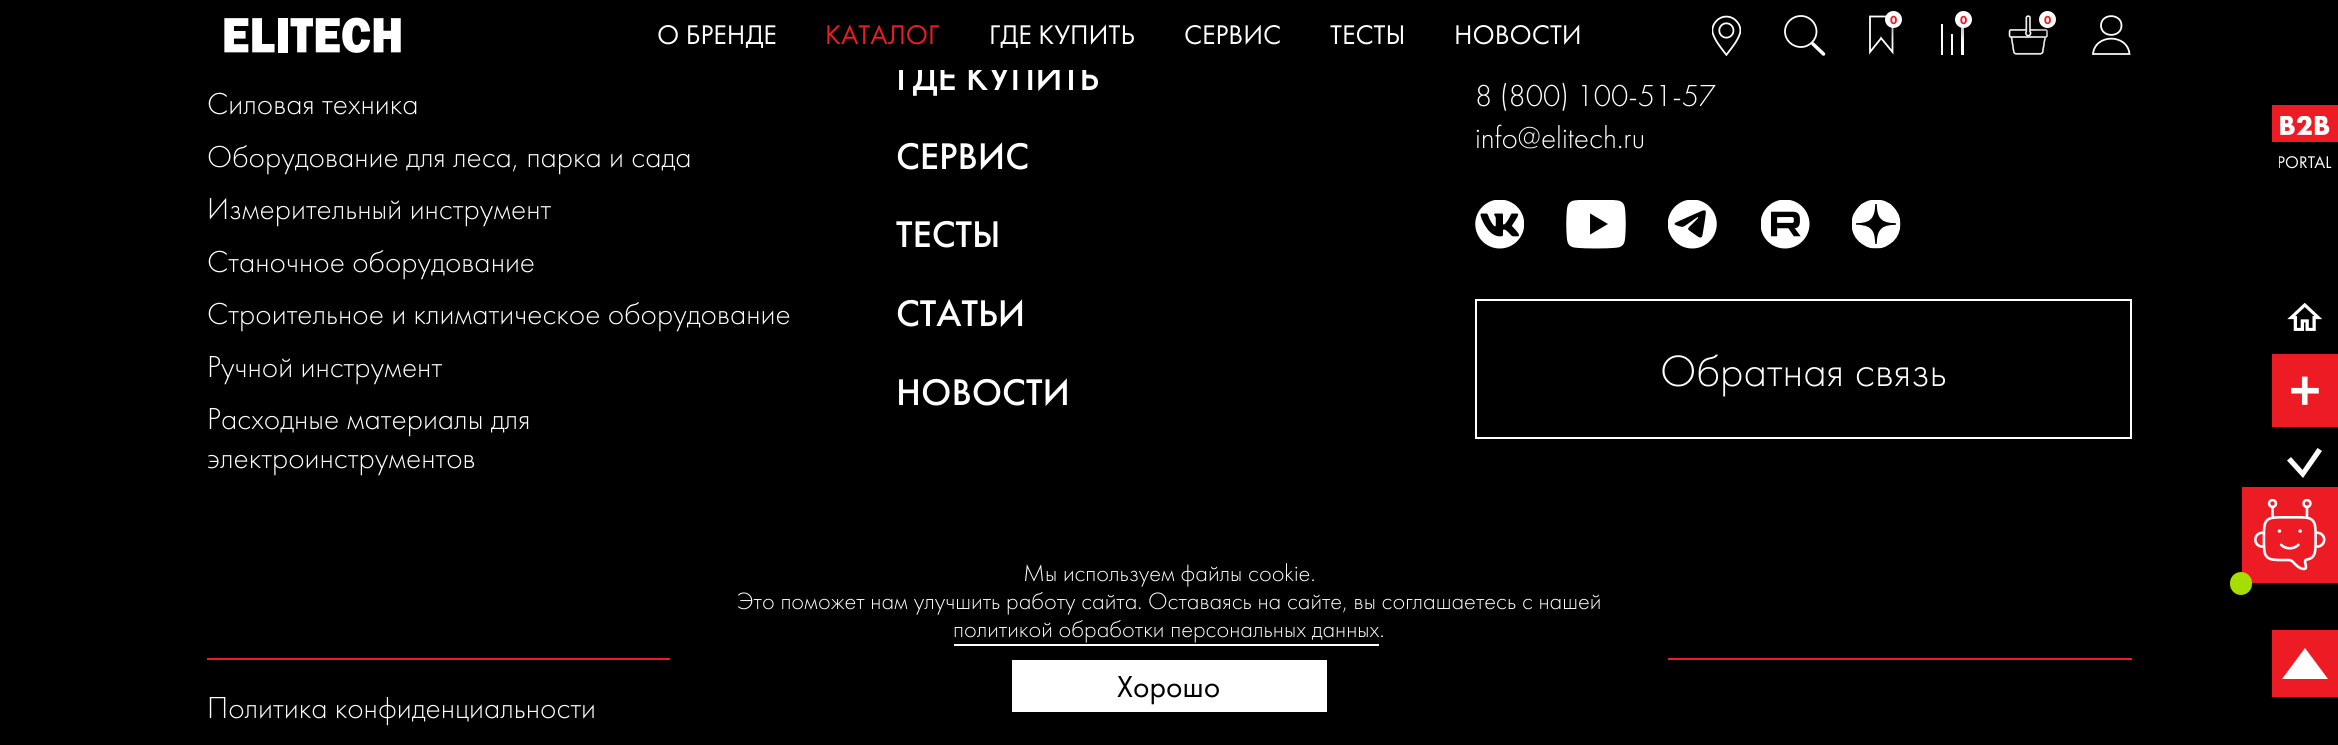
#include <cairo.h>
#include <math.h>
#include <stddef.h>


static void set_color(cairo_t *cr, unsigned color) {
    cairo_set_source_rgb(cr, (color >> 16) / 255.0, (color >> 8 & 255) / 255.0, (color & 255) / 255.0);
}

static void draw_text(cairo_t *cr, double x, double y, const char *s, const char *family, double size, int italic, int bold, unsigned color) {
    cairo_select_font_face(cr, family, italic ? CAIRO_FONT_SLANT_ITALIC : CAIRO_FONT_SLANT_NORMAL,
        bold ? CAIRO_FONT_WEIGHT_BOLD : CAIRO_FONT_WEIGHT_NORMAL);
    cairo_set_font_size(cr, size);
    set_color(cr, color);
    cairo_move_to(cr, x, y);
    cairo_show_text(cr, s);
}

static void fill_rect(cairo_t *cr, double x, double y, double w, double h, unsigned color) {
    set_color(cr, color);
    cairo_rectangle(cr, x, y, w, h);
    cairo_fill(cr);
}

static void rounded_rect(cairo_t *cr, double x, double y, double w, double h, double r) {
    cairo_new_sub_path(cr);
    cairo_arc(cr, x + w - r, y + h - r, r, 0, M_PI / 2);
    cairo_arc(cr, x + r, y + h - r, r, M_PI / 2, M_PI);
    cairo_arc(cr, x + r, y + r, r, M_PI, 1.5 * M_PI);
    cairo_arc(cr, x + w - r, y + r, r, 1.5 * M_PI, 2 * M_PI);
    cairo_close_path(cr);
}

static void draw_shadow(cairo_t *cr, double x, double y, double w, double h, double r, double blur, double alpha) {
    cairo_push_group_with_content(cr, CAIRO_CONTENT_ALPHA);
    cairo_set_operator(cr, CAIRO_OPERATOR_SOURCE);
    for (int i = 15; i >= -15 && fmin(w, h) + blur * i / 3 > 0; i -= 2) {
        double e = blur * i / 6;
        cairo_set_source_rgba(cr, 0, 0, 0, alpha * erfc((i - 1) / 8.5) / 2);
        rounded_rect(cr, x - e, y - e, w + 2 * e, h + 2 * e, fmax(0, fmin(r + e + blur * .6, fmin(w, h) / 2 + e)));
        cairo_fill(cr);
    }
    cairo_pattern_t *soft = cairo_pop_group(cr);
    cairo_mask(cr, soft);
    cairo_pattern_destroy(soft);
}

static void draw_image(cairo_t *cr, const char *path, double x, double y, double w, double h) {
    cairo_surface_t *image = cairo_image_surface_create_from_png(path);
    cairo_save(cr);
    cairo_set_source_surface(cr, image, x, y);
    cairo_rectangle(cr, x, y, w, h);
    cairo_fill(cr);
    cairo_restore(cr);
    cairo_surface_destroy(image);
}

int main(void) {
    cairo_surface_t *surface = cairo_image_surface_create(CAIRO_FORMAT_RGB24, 2338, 745);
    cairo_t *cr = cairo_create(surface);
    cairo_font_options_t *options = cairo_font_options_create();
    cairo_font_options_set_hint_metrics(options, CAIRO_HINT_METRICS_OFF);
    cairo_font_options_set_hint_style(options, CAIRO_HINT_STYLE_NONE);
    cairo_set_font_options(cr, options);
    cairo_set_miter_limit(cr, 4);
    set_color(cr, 0x000000);
    cairo_paint(cr);
    draw_text(cr, 896, 90, "ГДЕ КУПИТЬ", "Futura PT Medium", 38.5, 0, 0, 0xFFFFFF);
    fill_rect(cr, 899, 63, 188, 7, 0x000000);
    draw_image(cr, "assets/img1.png", 224, 17, 177, 36);
    draw_image(cr, "assets/img2.png", 1712, 15, 29, 41);
    cairo_new_path(cr);
    cairo_move_to(cr, 1816.5, 31.5);
    cairo_curve_to(cr, 1816.5, 40, 1809.5, 47, 1801, 47);
    cairo_curve_to(cr, 1792, 47, 1785, 40, 1785, 31.5);
    cairo_curve_to(cr, 1785, 23, 1792, 16, 1801, 16);
    cairo_curve_to(cr, 1809.5, 16, 1816.5, 23, 1816.5, 31.5);
    cairo_close_path(cr);
    set_color(cr, 0xFFFFFF);
    cairo_set_line_width(cr, 1.8);
    cairo_stroke(cr);
    cairo_new_path(cr);
    cairo_move_to(cr, 1823.5, 54);
    cairo_line_to(cr, 1813, 44);
    cairo_set_line_width(cr, 3.5);
    cairo_set_line_cap(cr, CAIRO_LINE_CAP_ROUND);
    cairo_stroke(cr);
    cairo_new_path(cr);
    cairo_move_to(cr, 1880.5, 39);
    cairo_line_to(cr, 1870, 52);
    cairo_line_to(cr, 1870, 16.5);
    cairo_line_to(cr, 1892.5, 16.5);
    cairo_line_to(cr, 1892.5, 52);
    cairo_line_to(cr, 1881, 38);
    cairo_close_path(cr);
    cairo_set_line_width(cr, 1.8);
    cairo_set_line_cap(cr, CAIRO_LINE_CAP_BUTT);
    cairo_stroke(cr);
    set_color(cr, 0x000000);
    draw_shadow(cr, 1885, 18, 17, 17, 8.5, 5, 0.25);
    set_color(cr, 0xFFFFFF);
    cairo_arc(cr, 1893.5, 19.5, 8.5, 0, 2 * M_PI);
    cairo_fill(cr);
    draw_text(cr, 1890, 24, "0", "Futura PT Black", 12, 0, 0, 0xED1C24);
    fill_rect(cr, 1941, 24, 2, 31, 0xFFFFFF);
    fill_rect(cr, 1961, 27, 3, 28, 0xFFFFFF);
    fill_rect(cr, 1951, 34, 2, 21, 0xFFFFFF);
    set_color(cr, 0x000000);
    draw_shadow(cr, 1955, 18, 17, 17, 8.5, 5, 0.25);
    set_color(cr, 0xFFFFFF);
    cairo_arc(cr, 1963.5, 19.5, 8.5, 0, 2 * M_PI);
    cairo_fill(cr);
    draw_text(cr, 1960, 24, "0", "Futura PT Black", 12, 0, 0, 0xED1C24);
    draw_image(cr, "assets/img3.png", 2008, 15, 40, 40);
    set_color(cr, 0x000000);
    draw_shadow(cr, 2039, 18, 17, 17, 8.5, 5, 0.25);
    set_color(cr, 0xFFFFFF);
    cairo_arc(cr, 2047.5, 19.5, 8.5, 0, 2 * M_PI);
    cairo_fill(cr);
    draw_text(cr, 2044, 24, "0", "Futura PT Black", 12, 0, 0, 0xED1C24);
    cairo_new_path(cr);
    cairo_move_to(cr, 2101, 25.5);
    cairo_curve_to(cr, 2101, 13, 2121.5, 13, 2121.5, 25.5);
    cairo_curve_to(cr, 2121.5, 38, 2101, 38, 2101, 25.5);
    cairo_close_path(cr);
    cairo_move_to(cr, 2093, 54);
    cairo_curve_to(cr, 2095, 33.5, 2127.5, 33.5, 2129.5, 54);
    cairo_close_path(cr);
    set_color(cr, 0xFFFFFF);
    cairo_stroke(cr);
    draw_text(cr, 657, 44, "О БРЕНДЕ", "Futura PT", 28, 0, 0, 0xFFFFFF);
    draw_text(cr, 825, 44, "КАТАЛОГ", "Futura PT", 28, 0, 0, 0xED1C24);
    draw_text(cr, 989, 44, "ГДЕ КУПИТЬ", "Futura PT", 28, 0, 0, 0xFFFFFF);
    draw_text(cr, 1184, 44, "СЕРВИС", "Futura PT", 28, 0, 0, 0xFFFFFF);
    draw_text(cr, 1330, 44, "ТЕСТЫ", "Futura PT", 28, 0, 0, 0xFFFFFF);
    draw_text(cr, 1454, 44, "НОВОСТИ", "Futura PT", 28, 0, 0, 0xFFFFFF);
    draw_text(cr, 207, 114, "Силовая техника", "Futura PT Light", 31.5, 0, 0, 0xFFFFFF);
    draw_text(cr, 207, 167, "Оборудование для леса, парка и сада", "Futura PT Light", 31.5, 0, 0, 0xFFFFFF);
    draw_text(cr, 207, 219, "Измерительный инструмент", "Futura PT Light", 31.5, 0, 0, 0xFFFFFF);
    draw_text(cr, 207, 272, "Станочное оборудование", "Futura PT Light", 31.5, 0, 0, 0xFFFFFF);
    draw_text(cr, 207, 324, "Строительное и климатическое оборудование", "Futura PT Light", 31.5, 0, 0, 0xFFFFFF);
    draw_text(cr, 207, 377, "Ручной инструмент", "Futura PT Light", 31.5, 0, 0, 0xFFFFFF);
    draw_text(cr, 207, 429, "Расходные материалы для", "Futura PT Light", 31.5, 0, 0, 0xFFFFFF);
    draw_text(cr, 207, 468, "электроинструментов", "Futura PT Light", 31.5, 0, 0, 0xFFFFFF);
    draw_text(cr, 896, 169, "СЕРВИС", "Futura PT Medium", 38.5, 0, 0, 0xFFFFFF);
    draw_text(cr, 896, 247, "ТЕСТЫ", "Futura PT Medium", 38.5, 0, 0, 0xFFFFFF);
    draw_text(cr, 896, 326, "СТАТЬИ", "Futura PT Medium", 38.5, 0, 0, 0xFFFFFF);
    draw_text(cr, 896, 405, "НОВОСТИ", "Futura PT Medium", 38.5, 0, 0, 0xFFFFFF);
    draw_text(cr, 1475, 106, "8 (800) 100-51-57", "Futura PT Light", 31.5, 0, 0, 0xFFFFFF);
    draw_text(cr, 1475, 148, "info@elitech.ru", "Futura PT Light", 31.5, 0, 0, 0xFFFFFF);
    draw_image(cr, "assets/img4.png", 1475, 200, 49, 49);
    draw_image(cr, "assets/img5.png", 1566, 200, 60, 49);
    draw_image(cr, "assets/img6.png", 1668, 200, 49, 49);
    draw_image(cr, "assets/img7.png", 1761, 200, 49, 49);
    draw_image(cr, "assets/img8.png", 1852, 200, 49, 49);
    cairo_rectangle(cr, 1476, 300, 655, 138);
    cairo_set_line_width(cr, 2);
    cairo_stroke(cr);
    draw_text(cr, 1660, 386, "Обратная связь", "Futura PT Light", 45.5, 0, 0, 0xFFFFFF);
    fill_rect(cr, 207, 658, 1925, 2, 0xED1C24);
    draw_text(cr, 207, 718, "Политика конфиденциальности", "Futura PT Light", 31.5, 0, 0, 0xFFFFFF);
    fill_rect(cr, 2272, 105, 66, 37, 0xED1C24);
    draw_image(cr, "assets/img9.png", 2279, 116, 53, 53);
    draw_image(cr, "assets/img10.png", 2287, 303, 35, 28);
    fill_rect(cr, 2272, 354, 66, 73, 0xED1C24);
    draw_image(cr, "assets/img11.png", 2291, 376, 28, 29);
    set_color(cr, 0xFFFFFF);
    cairo_new_path(cr);
    cairo_move_to(cr, 2317.5, 448);
    cairo_line_to(cr, 2302.5, 470);
    cairo_line_to(cr, 2291, 457);
    cairo_line_to(cr, 2287, 460.5);
    cairo_line_to(cr, 2303, 478);
    cairo_line_to(cr, 2322, 451);
    cairo_close_path(cr);
    cairo_fill(cr);
    fill_rect(cr, 2242, 487, 96, 96, 0xED1C24);
    set_color(cr, 0xA5DE00);
    rounded_rect(cr, 2230, 572, 22, 23, 11);
    cairo_fill(cr);
    draw_image(cr, "assets/img12.png", 2254, 499, 72, 72);
    fill_rect(cr, 670, 658, 998, 2, 0x000000);
    draw_text(cr, 1023, 581, "Мы используем файлы cookie.", "Futura PT Light", 24.5, 0, 0, 0xFFFFFF);
    draw_text(cr, 737, 609, "Это поможет нам улучшить работу сайта. Оставаясь на сайте, вы соглашаетесь с нашей", "Futura PT Light", 24.5, 0, 0, 0xFFFFFF);
    draw_text(cr, 953, 637, "политикой обработки персональных данных.", "Futura PT Light", 24.5, 0, 0, 0xFFFFFF);
    fill_rect(cr, 954, 644, 425, 2, 0xFFFFFF);
    fill_rect(cr, 1012, 660, 315, 52, 0xFFFFFF);
    draw_text(cr, 1117, 697, "Хорошо", "Futura PT", 31.5, 0, 0, 0x000000);
    fill_rect(cr, 2272, 630, 66, 67, 0xED1C24);
    set_color(cr, 0xFFFFFF);
    cairo_new_path(cr);
    cairo_move_to(cr, 2328, 679);
    cairo_line_to(cr, 2305, 648);
    cairo_line_to(cr, 2282, 679);
    cairo_close_path(cr);
    cairo_fill(cr);
    cairo_surface_write_to_png(surface, "output.png");
    cairo_font_options_destroy(options);
    cairo_destroy(cr);
    cairo_surface_destroy(surface);
    return 0;
}
